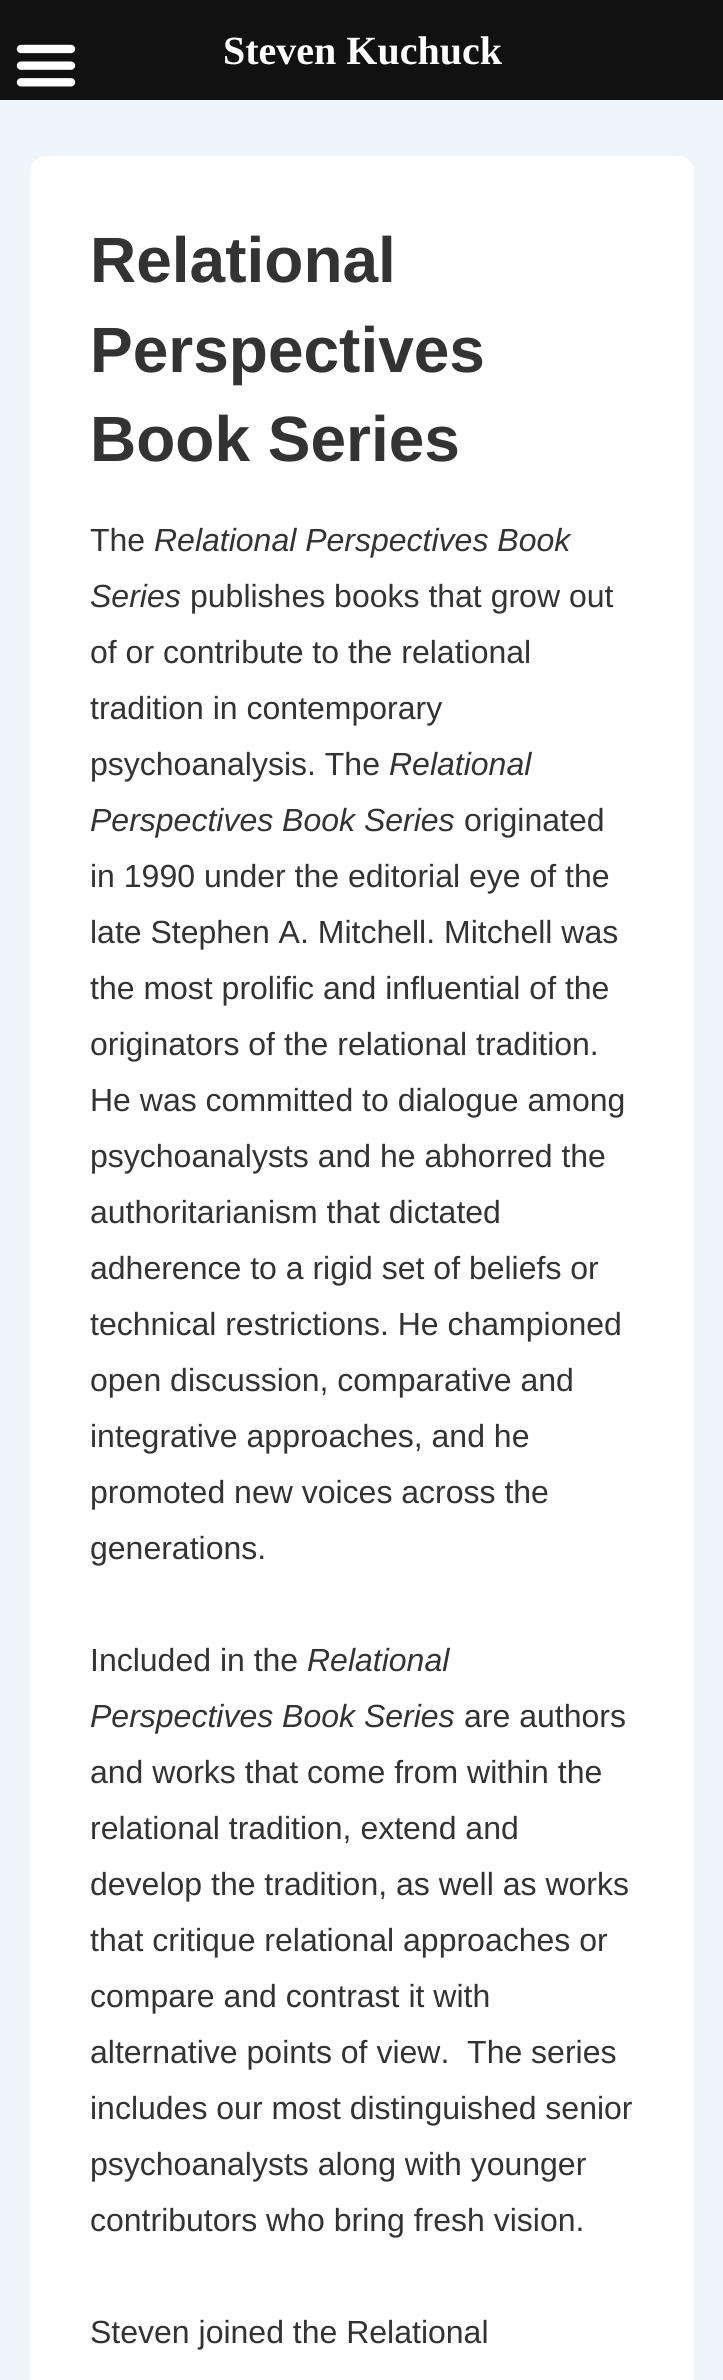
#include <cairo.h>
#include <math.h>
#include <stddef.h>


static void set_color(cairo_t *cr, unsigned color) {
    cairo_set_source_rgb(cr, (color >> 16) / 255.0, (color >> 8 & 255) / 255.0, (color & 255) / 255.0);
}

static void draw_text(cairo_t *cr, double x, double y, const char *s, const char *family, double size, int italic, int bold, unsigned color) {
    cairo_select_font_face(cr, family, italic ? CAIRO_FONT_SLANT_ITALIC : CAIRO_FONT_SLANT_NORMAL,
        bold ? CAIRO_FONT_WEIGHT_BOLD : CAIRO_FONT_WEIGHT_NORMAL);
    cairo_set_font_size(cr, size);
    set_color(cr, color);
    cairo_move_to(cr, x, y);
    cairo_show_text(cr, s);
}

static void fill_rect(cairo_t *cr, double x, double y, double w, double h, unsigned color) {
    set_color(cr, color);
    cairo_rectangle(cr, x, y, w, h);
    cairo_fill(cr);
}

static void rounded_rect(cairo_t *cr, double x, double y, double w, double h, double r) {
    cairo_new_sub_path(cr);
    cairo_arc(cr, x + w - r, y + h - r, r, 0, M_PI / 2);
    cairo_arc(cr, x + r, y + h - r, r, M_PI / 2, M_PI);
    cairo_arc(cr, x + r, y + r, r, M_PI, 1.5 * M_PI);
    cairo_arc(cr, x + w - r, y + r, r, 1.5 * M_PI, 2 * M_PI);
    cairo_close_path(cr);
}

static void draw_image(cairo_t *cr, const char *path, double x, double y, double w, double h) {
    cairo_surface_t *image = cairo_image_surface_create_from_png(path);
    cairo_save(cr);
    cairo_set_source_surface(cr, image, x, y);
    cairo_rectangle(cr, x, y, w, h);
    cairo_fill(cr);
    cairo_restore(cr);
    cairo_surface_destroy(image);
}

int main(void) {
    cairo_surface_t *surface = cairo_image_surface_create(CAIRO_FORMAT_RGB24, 723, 2380);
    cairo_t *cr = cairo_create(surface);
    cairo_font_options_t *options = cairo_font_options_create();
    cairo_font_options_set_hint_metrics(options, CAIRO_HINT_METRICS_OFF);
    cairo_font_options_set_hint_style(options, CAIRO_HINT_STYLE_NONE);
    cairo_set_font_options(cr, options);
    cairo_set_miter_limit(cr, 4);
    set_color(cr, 0xF0F5FA);
    cairo_paint(cr);
    fill_rect(cr, 0, 0, 723, 100, 0x111111);
    draw_image(cr, "assets/img1.png", 16, 44, 60, 43);
    draw_text(cr, 223, 64, "Steven Kuchuck", "Liberation Serif", 40, 0, 1, 0xFFFFFF);
    rounded_rect(cr, 30, 156, 664, 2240, 16);
    cairo_fill(cr);
    draw_text(cr, 90, 282, "Relational", "Liberation Sans", 64, 0, 1, 0x333333);
    draw_text(cr, 90, 372, "Perspectives", "Liberation Sans", 64, 0, 1, 0x333333);
    draw_text(cr, 90, 461, "Book Series", "Liberation Sans", 64, 0, 1, 0x333333);
    draw_text(cr, 90, 551, "The", "Liberation Sans", 32, 0, 0, 0x333333);
    draw_text(cr, 154, 551, "Relational Perspectives Book", "Liberation Sans", 32, 1, 0, 0x333333);
    draw_text(cr, 90, 607, "Series", "Liberation Sans", 32, 1, 0, 0x333333);
    draw_text(cr, 190, 607, "publishes books that grow out", "Liberation Sans", 32, 0, 0, 0x333333);
    draw_text(cr, 90, 663, "of or contribute to the relational", "Liberation Sans", 32, 0, 0, 0x333333);
    draw_text(cr, 90, 719, "tradition in contemporary", "Liberation Sans", 32, 0, 0, 0x333333);
    draw_text(cr, 90, 775, "psychoanalysis. The", "Liberation Sans", 32, 0, 0, 0x333333);
    draw_text(cr, 389, 775, "Relational", "Liberation Sans", 32, 1, 0, 0x333333);
    draw_text(cr, 90, 831, "Perspectives Book Series", "Liberation Sans", 32, 1, 0, 0x333333);
    draw_text(cr, 464, 831, "originated", "Liberation Sans", 32, 0, 0, 0x333333);
    draw_text(cr, 90, 887, "in 1990 under the editorial eye of the", "Liberation Sans", 32, 0, 0, 0x333333);
    draw_text(cr, 90, 943, "late Stephen A. Mitchell. Mitchell was", "Liberation Sans", 32, 0, 0, 0x333333);
    draw_text(cr, 90, 999, "the most prolific and influential of the", "Liberation Sans", 32, 0, 0, 0x333333);
    draw_text(cr, 90, 1055, "originators of the relational tradition.", "Liberation Sans", 32, 0, 0, 0x333333);
    draw_text(cr, 90, 1111, "He was committed to dialogue among", "Liberation Sans", 32, 0, 0, 0x333333);
    draw_text(cr, 90, 1167, "psychoanalysts and he abhorred the", "Liberation Sans", 32, 0, 0, 0x333333);
    draw_text(cr, 90, 1223, "authoritarianism that dictated", "Liberation Sans", 32, 0, 0, 0x333333);
    draw_text(cr, 90, 1279, "adherence to a rigid set of beliefs or", "Liberation Sans", 32, 0, 0, 0x333333);
    draw_text(cr, 90, 1335, "technical restrictions. He championed", "Liberation Sans", 32, 0, 0, 0x333333);
    draw_text(cr, 90, 1391, "open discussion, comparative and", "Liberation Sans", 32, 0, 0, 0x333333);
    draw_text(cr, 90, 1447, "integrative approaches, and he", "Liberation Sans", 32, 0, 0, 0x333333);
    draw_text(cr, 90, 1503, "promoted new voices across the", "Liberation Sans", 32, 0, 0, 0x333333);
    draw_text(cr, 90, 1559, "generations.", "Liberation Sans", 32, 0, 0, 0x333333);
    draw_text(cr, 90, 1671, "Included in the", "Liberation Sans", 32, 0, 0, 0x333333);
    draw_text(cr, 307, 1671, "Relational", "Liberation Sans", 32, 1, 0, 0x333333);
    draw_text(cr, 90, 1727, "Perspectives Book Series", "Liberation Sans", 32, 1, 0, 0x333333);
    draw_text(cr, 464, 1727, "are authors", "Liberation Sans", 32, 0, 0, 0x333333);
    draw_text(cr, 90, 1783, "and works that come from within the", "Liberation Sans", 32, 0, 0, 0x333333);
    draw_text(cr, 90, 1839, "relational tradition, extend and", "Liberation Sans", 32, 0, 0, 0x333333);
    draw_text(cr, 90, 1895, "develop the tradition, as well as works", "Liberation Sans", 32, 0, 0, 0x333333);
    draw_text(cr, 90, 1951, "that critique relational approaches or", "Liberation Sans", 32, 0, 0, 0x333333);
    draw_text(cr, 90, 2007, "compare and contrast it with", "Liberation Sans", 32, 0, 0, 0x333333);
    draw_text(cr, 90, 2063, "alternative points of view.  The series", "Liberation Sans", 32, 0, 0, 0x333333);
    draw_text(cr, 90, 2119, "includes our most distinguished senior", "Liberation Sans", 32, 0, 0, 0x333333);
    draw_text(cr, 90, 2175, "psychoanalysts along with younger", "Liberation Sans", 32, 0, 0, 0x333333);
    draw_text(cr, 90, 2231, "contributors who bring fresh vision.", "Liberation Sans", 32, 0, 0, 0x333333);
    draw_text(cr, 90, 2343, "Steven joined the Relational", "Liberation Sans", 32, 0, 0, 0x333333);
    cairo_surface_write_to_png(surface, "output.png");
    cairo_font_options_destroy(options);
    cairo_destroy(cr);
    cairo_surface_destroy(surface);
    return 0;
}
